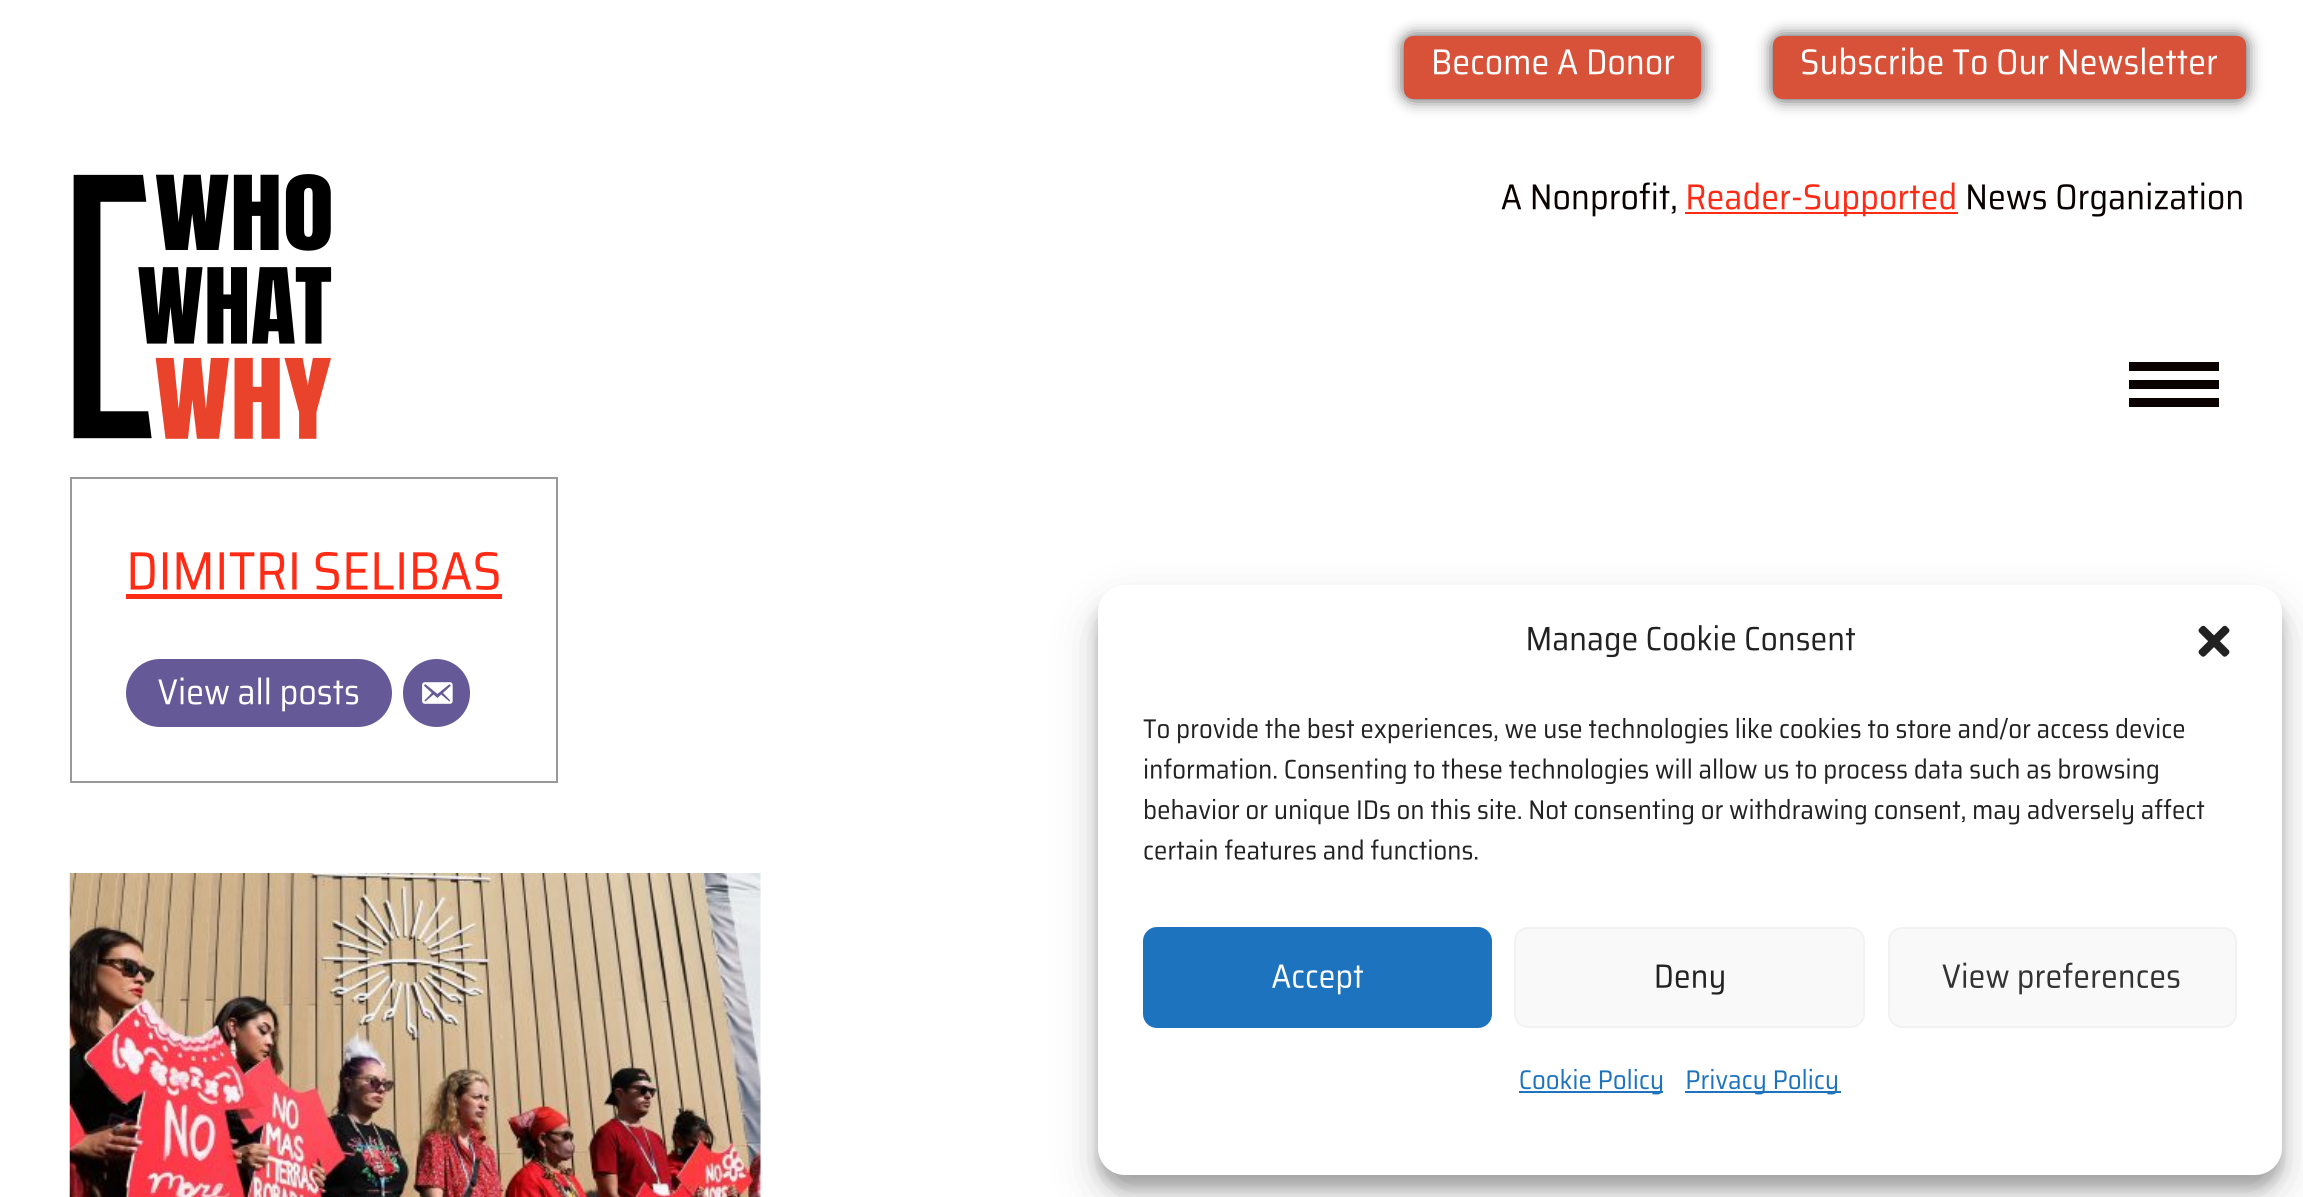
#include <cairo.h>
#include <math.h>
#include <stddef.h>


static void set_color(cairo_t *cr, unsigned color) {
    cairo_set_source_rgb(cr, (color >> 16) / 255.0, (color >> 8 & 255) / 255.0, (color & 255) / 255.0);
}

static void fill_rect(cairo_t *cr, double x, double y, double w, double h, unsigned color) {
    set_color(cr, color);
    cairo_rectangle(cr, x, y, w, h);
    cairo_fill(cr);
}

static void rounded_rect(cairo_t *cr, double x, double y, double w, double h, double r) {
    cairo_new_sub_path(cr);
    cairo_arc(cr, x + w - r, y + h - r, r, 0, M_PI / 2);
    cairo_arc(cr, x + r, y + h - r, r, M_PI / 2, M_PI);
    cairo_arc(cr, x + r, y + r, r, M_PI, 1.5 * M_PI);
    cairo_arc(cr, x + w - r, y + r, r, 1.5 * M_PI, 2 * M_PI);
    cairo_close_path(cr);
}

static void draw_shadow(cairo_t *cr, double x, double y, double w, double h, double r, double blur, double alpha) {
    cairo_push_group_with_content(cr, CAIRO_CONTENT_ALPHA);
    cairo_set_operator(cr, CAIRO_OPERATOR_SOURCE);
    for (int i = 15; i >= -15 && fmin(w, h) + blur * i / 3 > 0; i -= 2) {
        double e = blur * i / 6;
        cairo_set_source_rgba(cr, 0, 0, 0, alpha * erfc((i - 1) / 8.5) / 2);
        rounded_rect(cr, x - e, y - e, w + 2 * e, h + 2 * e, fmax(0, fmin(r + e + blur * .6, fmin(w, h) / 2 + e)));
        cairo_fill(cr);
    }
    cairo_pattern_t *soft = cairo_pop_group(cr);
    cairo_mask(cr, soft);
    cairo_pattern_destroy(soft);
}

static void draw_image(cairo_t *cr, const char *path, double x, double y, double w, double h) {
    cairo_surface_t *image = cairo_image_surface_create_from_png(path);
    cairo_save(cr);
    cairo_set_source_surface(cr, image, x, y);
    cairo_rectangle(cr, x, y, w, h);
    cairo_fill(cr);
    cairo_restore(cr);
    cairo_surface_destroy(image);
}

int main(void) {
    cairo_surface_t *surface = cairo_image_surface_create(CAIRO_FORMAT_RGB24, 2303, 1197);
    cairo_t *cr = cairo_create(surface);
    cairo_font_options_t *options = cairo_font_options_create();
    cairo_font_options_set_hint_metrics(options, CAIRO_HINT_METRICS_OFF);
    cairo_font_options_set_hint_style(options, CAIRO_HINT_STYLE_NONE);
    cairo_set_font_options(cr, options);
    cairo_set_miter_limit(cr, 4);
    set_color(cr, 0xFFFFFF);
    cairo_paint(cr);
    set_color(cr, 0x444444);
    draw_shadow(cr, 1404, 36, 297, 63, 9, 8, 1);
    set_color(cr, 0xD85139);
    rounded_rect(cr, 1404, 36, 297, 63, 9);
    cairo_fill(cr);
    draw_image(cr, "assets/img1.png", 1434, 49, 241, 26);
    set_color(cr, 0x444444);
    draw_shadow(cr, 1773, 36, 473, 63, 9, 8, 1);
    set_color(cr, 0xD85139);
    rounded_rect(cr, 1773, 36, 473, 63, 9);
    cairo_fill(cr);
    draw_image(cr, "assets/img2.png", 1802, 47, 415, 28);
    draw_image(cr, "assets/img3.png", 73, 174, 259, 265);
    fill_rect(cr, 2129, 362, 90, 9, 0x0A0101);
    fill_rect(cr, 2129, 380, 90, 9, 0x0A0101);
    fill_rect(cr, 2129, 398, 90, 9, 0x0A0101);
    draw_image(cr, "assets/img4.png", 1501, 182, 175, 35);
    fill_rect(cr, 1685, 212, 273, 2, 0xFF2B15);
    draw_image(cr, "assets/img5.png", 1688, 182, 267, 35);
    draw_image(cr, "assets/img6.png", 1968, 182, 274, 35);
    cairo_rectangle(cr, 71, 478, 486, 304);
    set_color(cr, 0x999999);
    cairo_stroke(cr);
    draw_image(cr, "assets/img7.png", 130, 551, 369, 39);
    fill_rect(cr, 126, 594, 376, 5, 0xFF2B15);
    set_color(cr, 0x655997);
    rounded_rect(cr, 126, 659, 266, 68, 34);
    cairo_fill(cr);
    draw_image(cr, "assets/img8.png", 158, 677, 201, 35);
    rounded_rect(cr, 403, 659, 67, 68, 33.5);
    cairo_fill(cr);
    draw_image(cr, "assets/img9.png", 422, 682, 31, 22);
    draw_image(cr, "assets/img10.png", 69, 873, 692, 324);
    set_color(cr, 0x000000);
    draw_shadow(cr, 1098, 599, 1184, 589, 27, 7, 0.23);
    draw_shadow(cr, 1098, 608, 1184, 589, 27, 22.5, 0.19);
    set_color(cr, 0xFFFFFF);
    rounded_rect(cr, 1098, 585, 1184, 590, 27);
    cairo_fill(cr);
    draw_image(cr, "assets/img11.png", 1528, 625, 327, 33);
    draw_image(cr, "assets/img12.png", 2198, 625, 32, 32);
    draw_image(cr, "assets/img13.png", 1143, 717, 1042, 27);
    draw_image(cr, "assets/img14.png", 1144, 758, 1014, 26);
    draw_image(cr, "assets/img15.png", 1145, 798, 1060, 27);
    draw_image(cr, "assets/img16.png", 1144, 839, 334, 21);
    set_color(cr, 0x1E73BE);
    rounded_rect(cr, 1144, 928, 347, 99, 13);
    cairo_fill_preserve(cr);
    cairo_stroke(cr);
    draw_image(cr, "assets/img17.png", 1272, 964, 91, 31);
    set_color(cr, 0xF9F9F9);
    rounded_rect(cr, 1515, 928, 349, 99, 13);
    cairo_fill_preserve(cr);
    set_color(cr, 0xF2F2F2);
    cairo_stroke(cr);
    draw_image(cr, "assets/img18.png", 1656, 964, 68, 31);
    set_color(cr, 0xF9F9F9);
    rounded_rect(cr, 1889, 928, 347, 99, 13);
    cairo_fill_preserve(cr);
    set_color(cr, 0xF2F2F2);
    cairo_stroke(cr);
    draw_image(cr, "assets/img19.png", 1942, 962, 238, 33);
    fill_rect(cr, 1519, 1091, 144, 2, 0x1E73BE);
    draw_image(cr, "assets/img20.png", 1520, 1068, 143, 27);
    fill_rect(cr, 1685, 1091, 156, 2, 0x1E73BE);
    draw_image(cr, "assets/img21.png", 1687, 1068, 151, 27);
    cairo_surface_write_to_png(surface, "output.png");
    cairo_font_options_destroy(options);
    cairo_destroy(cr);
    cairo_surface_destroy(surface);
    return 0;
}
